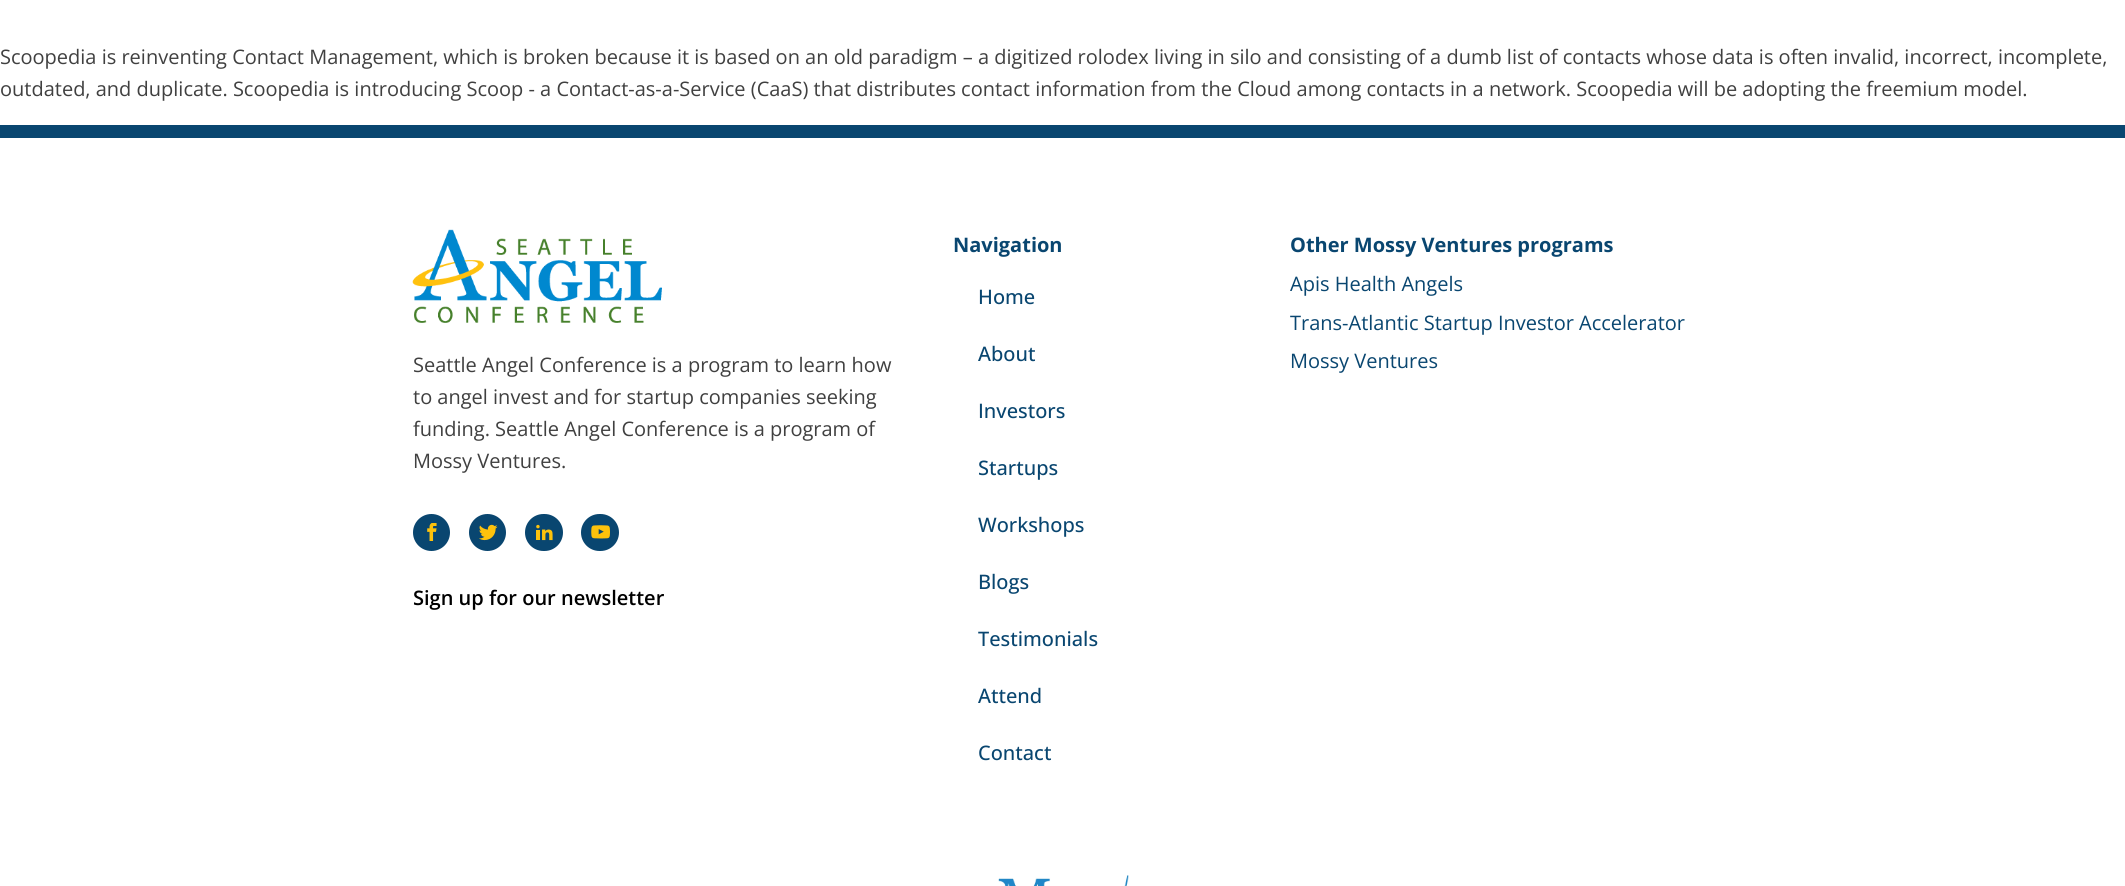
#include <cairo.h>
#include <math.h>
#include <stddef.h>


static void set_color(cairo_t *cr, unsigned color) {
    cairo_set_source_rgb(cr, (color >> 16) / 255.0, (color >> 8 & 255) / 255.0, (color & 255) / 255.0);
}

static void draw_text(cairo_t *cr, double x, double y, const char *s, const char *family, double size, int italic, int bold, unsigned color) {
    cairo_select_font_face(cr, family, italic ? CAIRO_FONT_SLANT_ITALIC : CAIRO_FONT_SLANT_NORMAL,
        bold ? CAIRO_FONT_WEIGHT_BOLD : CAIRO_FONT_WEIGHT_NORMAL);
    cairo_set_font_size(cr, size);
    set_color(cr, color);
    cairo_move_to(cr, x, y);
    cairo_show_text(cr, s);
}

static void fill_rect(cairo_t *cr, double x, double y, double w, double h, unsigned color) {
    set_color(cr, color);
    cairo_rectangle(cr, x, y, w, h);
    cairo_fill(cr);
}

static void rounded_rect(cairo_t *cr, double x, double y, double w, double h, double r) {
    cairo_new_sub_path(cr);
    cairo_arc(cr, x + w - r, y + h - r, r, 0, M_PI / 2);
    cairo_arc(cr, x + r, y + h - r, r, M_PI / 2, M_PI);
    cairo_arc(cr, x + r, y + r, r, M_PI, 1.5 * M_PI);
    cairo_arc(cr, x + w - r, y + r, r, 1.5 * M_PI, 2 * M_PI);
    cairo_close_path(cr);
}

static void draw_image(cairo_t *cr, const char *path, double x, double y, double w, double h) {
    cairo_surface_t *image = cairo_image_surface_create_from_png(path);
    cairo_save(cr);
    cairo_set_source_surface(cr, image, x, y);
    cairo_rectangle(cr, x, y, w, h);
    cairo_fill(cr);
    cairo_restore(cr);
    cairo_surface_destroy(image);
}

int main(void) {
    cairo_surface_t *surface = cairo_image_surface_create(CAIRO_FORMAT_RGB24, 2125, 886);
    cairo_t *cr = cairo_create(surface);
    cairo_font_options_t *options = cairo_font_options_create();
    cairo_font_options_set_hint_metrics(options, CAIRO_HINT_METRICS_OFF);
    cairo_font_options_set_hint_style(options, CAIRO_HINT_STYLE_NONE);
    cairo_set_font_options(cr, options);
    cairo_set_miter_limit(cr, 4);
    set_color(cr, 0xFFFFFF);
    cairo_paint(cr);
    draw_text(cr, 0, 64, "Scoopedia is reinventing Contact Management, which is broken because it is based on an old paradigm – a digitized rolodex living in silo and consisting of a dumb list of contacts whose data is often invalid, incorrect, incomplete,", "Open Sans", 20, 0, 0, 0x404040);
    draw_text(cr, 0, 96, "outdated, and duplicate. Scoopedia is introducing Scoop - a Contact-as-a-Service (CaaS) that distributes contact information from the Cloud among contacts in a network. Scoopedia will be adopting the freemium model.", "Open Sans", 20, 0, 0, 0x404040);
    fill_rect(cr, 0, 125, 2125, 13, 0x094670);
    draw_text(cr, 953, 252, "Navigation", "Open Sans", 20, 0, 1, 0x094670);
    draw_text(cr, 978, 304, "Home", "Open Sans Medium", 20, 0, 0, 0x094670);
    draw_text(cr, 978, 361, "About", "Open Sans Medium", 20, 0, 0, 0x094670);
    draw_text(cr, 978, 418, "Investors", "Open Sans Medium", 20, 0, 0, 0x094670);
    draw_text(cr, 978, 475, "Startups", "Open Sans Medium", 20, 0, 0, 0x094670);
    draw_text(cr, 978, 532, "Workshops", "Open Sans Medium", 20, 0, 0, 0x094670);
    draw_text(cr, 978, 589, "Blogs", "Open Sans Medium", 20, 0, 0, 0x094670);
    draw_text(cr, 978, 646, "Testimonials", "Open Sans Medium", 20, 0, 0, 0x094670);
    draw_text(cr, 978, 703, "Attend", "Open Sans Medium", 20, 0, 0, 0x094670);
    draw_text(cr, 978, 760, "Contact", "Open Sans Medium", 20, 0, 0, 0x094670);
    draw_text(cr, 1290, 252, "Other Mossy Ventures programs", "Open Sans", 20, 0, 1, 0x094670);
    draw_text(cr, 1290, 291, "Apis Health Angels", "Open Sans", 20, 0, 0, 0x094670);
    draw_text(cr, 1290, 330, "Trans-Atlantic Startup Investor Accelerator", "Open Sans", 20, 0, 0, 0x094670);
    draw_text(cr, 1290, 368, "Mossy Ventures", "Open Sans", 20, 0, 0, 0x094670);
    draw_image(cr, "assets/img1.png", 412, 229, 250, 94);
    draw_text(cr, 413, 372, "Seattle Angel Conference is a program to learn how", "Open Sans", 20, 0, 0, 0x404040);
    draw_text(cr, 413, 404, "to angel invest and for startup companies seeking", "Open Sans", 20, 0, 0, 0x404040);
    draw_text(cr, 413, 436, "funding. Seattle Angel Conference is a program of", "Open Sans", 20, 0, 0, 0x404040);
    draw_text(cr, 413, 468, "Mossy Ventures.", "Open Sans", 20, 0, 0, 0x404040);
    set_color(cr, 0x094670);
    cairo_new_path(cr);
    cairo_arc(cr, 431.5, 532.5, 18.5, 0, 2 * M_PI);
    cairo_fill(cr);
    draw_image(cr, "assets/img2.png", 427, 523, 10, 18);
    cairo_arc(cr, 487.5, 532.5, 18.5, 0, 2 * M_PI);
    cairo_fill(cr);
    draw_image(cr, "assets/img3.png", 479, 524, 19, 17);
    rounded_rect(cr, 525, 514, 38, 37, 18.5);
    cairo_fill(cr);
    draw_image(cr, "assets/img4.png", 536, 524, 17, 17);
    rounded_rect(cr, 581, 514, 38, 37, 18.5);
    cairo_fill(cr);
    draw_image(cr, "assets/img5.png", 591, 525, 19, 14);
    draw_text(cr, 413, 605, "Sign up for our newsletter", "Open Sans SemiBold", 20, 0, 0, 0x000000);
    draw_image(cr, "assets/img6.png", 998, 875, 131, 11);
    cairo_surface_write_to_png(surface, "output.png");
    cairo_font_options_destroy(options);
    cairo_destroy(cr);
    cairo_surface_destroy(surface);
    return 0;
}
